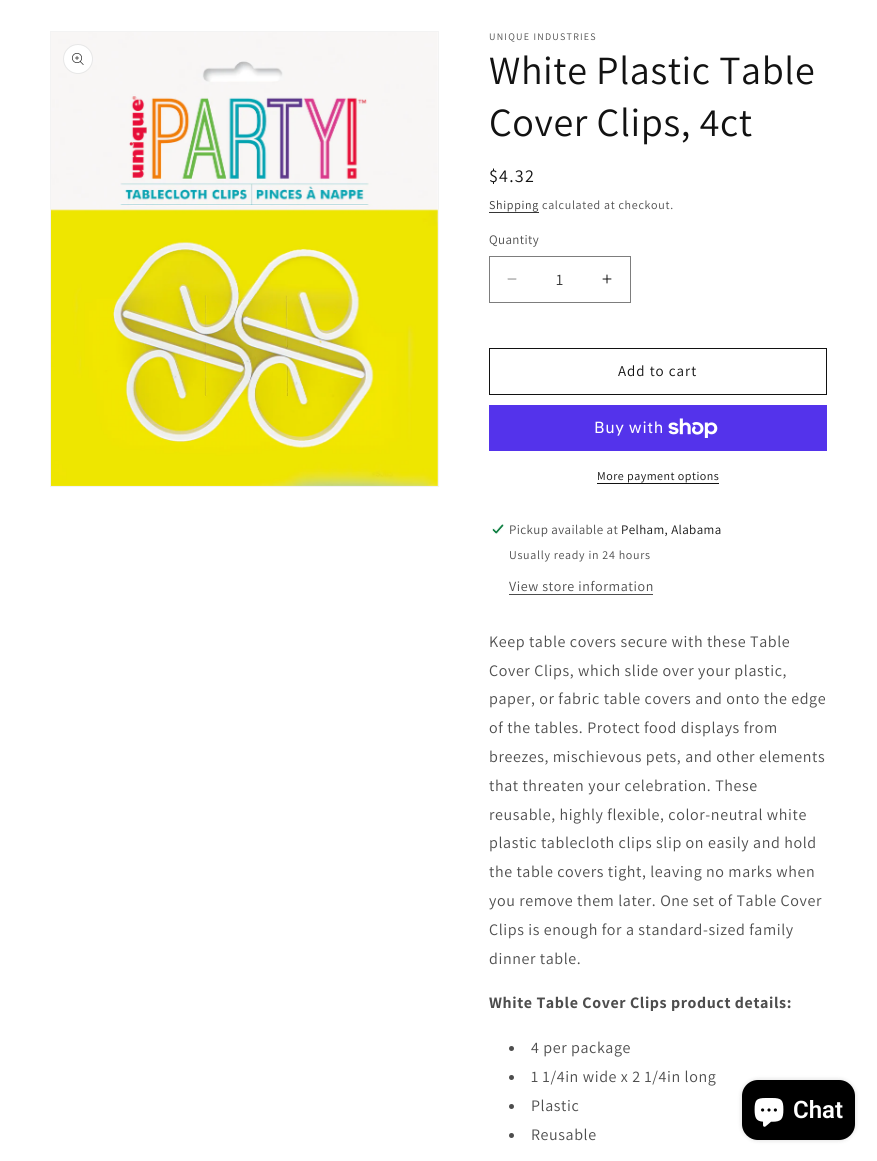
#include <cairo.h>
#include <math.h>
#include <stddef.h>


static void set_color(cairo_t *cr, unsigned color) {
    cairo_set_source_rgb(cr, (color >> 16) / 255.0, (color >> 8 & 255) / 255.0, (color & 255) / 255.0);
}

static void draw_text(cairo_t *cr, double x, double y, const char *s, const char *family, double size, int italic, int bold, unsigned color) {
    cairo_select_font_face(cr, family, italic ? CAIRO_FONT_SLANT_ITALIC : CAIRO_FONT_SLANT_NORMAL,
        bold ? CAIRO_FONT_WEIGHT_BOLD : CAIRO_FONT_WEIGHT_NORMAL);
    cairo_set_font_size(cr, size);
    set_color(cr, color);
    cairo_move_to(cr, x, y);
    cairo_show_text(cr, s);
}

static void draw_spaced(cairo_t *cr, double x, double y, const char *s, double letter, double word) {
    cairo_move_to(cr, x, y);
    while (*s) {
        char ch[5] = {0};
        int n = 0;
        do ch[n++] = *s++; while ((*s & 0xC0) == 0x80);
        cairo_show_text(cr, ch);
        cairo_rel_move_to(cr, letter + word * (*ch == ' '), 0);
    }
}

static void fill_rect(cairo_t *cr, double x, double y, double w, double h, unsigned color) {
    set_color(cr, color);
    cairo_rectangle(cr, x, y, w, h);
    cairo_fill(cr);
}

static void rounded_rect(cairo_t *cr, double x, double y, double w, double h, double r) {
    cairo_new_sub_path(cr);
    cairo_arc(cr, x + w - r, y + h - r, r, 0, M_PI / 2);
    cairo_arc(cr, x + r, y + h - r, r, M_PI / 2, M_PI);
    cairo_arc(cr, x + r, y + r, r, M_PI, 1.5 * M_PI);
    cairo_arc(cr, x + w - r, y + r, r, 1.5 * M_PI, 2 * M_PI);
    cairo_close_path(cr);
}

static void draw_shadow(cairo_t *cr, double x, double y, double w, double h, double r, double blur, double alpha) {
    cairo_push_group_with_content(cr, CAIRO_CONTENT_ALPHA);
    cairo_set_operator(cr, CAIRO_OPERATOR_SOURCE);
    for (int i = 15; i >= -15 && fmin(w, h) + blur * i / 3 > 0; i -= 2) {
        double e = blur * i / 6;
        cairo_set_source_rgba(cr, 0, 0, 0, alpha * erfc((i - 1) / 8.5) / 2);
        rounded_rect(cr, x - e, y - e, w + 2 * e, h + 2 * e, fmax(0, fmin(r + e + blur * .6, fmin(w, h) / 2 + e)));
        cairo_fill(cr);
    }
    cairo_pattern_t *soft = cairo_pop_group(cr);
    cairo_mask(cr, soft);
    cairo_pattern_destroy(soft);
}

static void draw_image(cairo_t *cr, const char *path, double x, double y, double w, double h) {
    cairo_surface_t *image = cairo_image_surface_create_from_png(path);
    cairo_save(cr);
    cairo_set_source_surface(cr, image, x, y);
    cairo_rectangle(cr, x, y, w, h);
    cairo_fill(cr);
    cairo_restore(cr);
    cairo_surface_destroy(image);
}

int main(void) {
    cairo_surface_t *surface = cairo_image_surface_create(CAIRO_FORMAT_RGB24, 877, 1161);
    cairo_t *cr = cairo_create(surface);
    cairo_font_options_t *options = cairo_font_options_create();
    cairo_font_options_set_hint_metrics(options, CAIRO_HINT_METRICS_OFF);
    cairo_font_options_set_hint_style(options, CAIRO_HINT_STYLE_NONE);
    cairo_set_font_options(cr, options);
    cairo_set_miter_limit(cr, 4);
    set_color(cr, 0xFFFFFF);
    cairo_paint(cr);
    cairo_rectangle(cr, 50.5, 31.5, 388, 455);
    set_color(cr, 0xF3F3F3);
    cairo_set_line_width(cr, 1);
    cairo_stroke(cr);
    draw_image(cr, "assets/img1.png", 51, 32, 387, 454);
    set_color(cr, 0xFFFFFF);
    cairo_arc(cr, 78, 59, 15, 0, 2 * M_PI);
    cairo_fill(cr);
    cairo_arc(cr, 78, 59, 14.5, 0, 2 * M_PI);
    cairo_set_source_rgba(cr, 0.071, 0.071, 0.071, 0.1);
    cairo_stroke(cr);
    draw_image(cr, "assets/img2.png", 72, 53, 12, 12);
    cairo_select_font_face(cr, "Assistant", CAIRO_FONT_SLANT_NORMAL, CAIRO_FONT_WEIGHT_NORMAL);
    cairo_set_font_size(cr, 10);
    set_color(cr, 0x4D4D4D);
    draw_spaced(cr, 489, 40, "UNIQUE INDUSTRIES", 1.25, 0);
    cairo_set_font_size(cr, 40);
    set_color(cr, 0x121212);
    draw_spaced(cr, 489, 84, "White Plastic Table", 0.6, 0);
    draw_spaced(cr, 489, 136, "Cover Clips, 4ct", 0.6, 0);
    cairo_set_font_size(cr, 18);
    draw_spaced(cr, 489, 182, "$4.32", 1.25, 0);
    cairo_set_font_size(cr, 12);
    set_color(cr, 0x363636);
    draw_spaced(cr, 489, 209, "Shipping", 0.7, 0);
    fill_rect(cr, 489, 212, 50, 1, 0x363636);
    set_color(cr, 0x4D4D4D);
    draw_spaced(cr, 542, 209, "calculated at checkout.", 0.7, 0);
    cairo_set_font_size(cr, 13);
    draw_spaced(cr, 489, 244, "Quantity", 0.4, 0);
    draw_image(cr, "assets/img3.png", 507, 278, 10, 2);
    draw_image(cr, "assets/img4.png", 602, 274, 10, 10);
    cairo_rectangle(cr, 489.5, 256.5, 141, 46);
    set_color(cr, 0x7D7D7D);
    cairo_stroke(cr);
    draw_text(cr, 556, 285, "1", "Assistant", 16, 0, 0, 0x363636);
    cairo_rectangle(cr, 489.5, 348.5, 337, 46);
    set_color(cr, 0x121212);
    cairo_stroke(cr);
    cairo_set_font_size(cr, 15);
    draw_spaced(cr, 618, 376, "Add to cart", 1, 0);
    fill_rect(cr, 489, 405, 338, 46, 0x5433EB);
    cairo_select_font_face(cr, "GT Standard", CAIRO_FONT_SLANT_NORMAL, CAIRO_FONT_WEIGHT_NORMAL);
    cairo_set_font_size(cr, 16);
    set_color(cr, 0xFFFFFF);
    draw_spaced(cr, 594, 433, "Buy with", 0.6, 0);
    draw_image(cr, "assets/img5.png", 668, 418, 50, 20);
    cairo_select_font_face(cr, "Assistant", CAIRO_FONT_SLANT_NORMAL, CAIRO_FONT_WEIGHT_NORMAL);
    cairo_set_font_size(cr, 12);
    set_color(cr, 0x121212);
    draw_spaced(cr, 597, 480, "More payment options", 0.5, 0);
    fill_rect(cr, 597, 483, 122, 1, 0x121212);
    draw_image(cr, "assets/img6.png", 492, 524, 12, 10);
    cairo_set_font_size(cr, 13);
    set_color(cr, 0x4D4D4D);
    draw_spaced(cr, 509, 534, "Pickup available at", 0.4, 0);
    set_color(cr, 0x121212);
    draw_spaced(cr, 621, 534, "Pelham, Alabama", 0.4, 0);
    cairo_set_font_size(cr, 12);
    set_color(cr, 0x4D4D4D);
    draw_spaced(cr, 509, 559, "Usually ready in 24 hours", 0.7, 0);
    cairo_set_font_size(cr, 14);
    draw_spaced(cr, 509, 591, "View store information", 0.6, 0);
    fill_rect(cr, 509, 594, 144, 1, 0x4D4D4D);
    cairo_set_font_size(cr, 16);
    draw_spaced(cr, 489, 647, "Keep table covers secure with these Table", 0.6, 0);
    draw_spaced(cr, 489, 676, "Cover Clips, which slide over your plastic,", 0.6, 0);
    draw_spaced(cr, 489, 704, "paper, or fabric table covers and onto the edge", 0.6, 0);
    draw_spaced(cr, 489, 733, "of the tables. Protect food displays from", 0.6, 0);
    draw_spaced(cr, 489, 762, "breezes, mischievous pets, and other elements", 0.6, 0);
    draw_spaced(cr, 489, 791, "that threaten your celebration. These", 0.6, 0);
    draw_spaced(cr, 489, 820, "reusable, highly flexible, color-neutral white", 0.6, 0);
    draw_spaced(cr, 489, 848, "plastic tablecloth clips slip on easily and hold", 0.6, 0);
    draw_spaced(cr, 489, 877, "the table covers tight, leaving no marks when", 0.6, 0);
    draw_spaced(cr, 489, 906, "you remove them later. One set of Table Cover", 0.6, 0);
    draw_spaced(cr, 489, 935, "Clips is enough for a standard-sized family", 0.6, 0);
    draw_spaced(cr, 489, 964, "dinner table.", 0.6, 0);
    cairo_select_font_face(cr, "Assistant", CAIRO_FONT_SLANT_NORMAL, CAIRO_FONT_WEIGHT_BOLD);
    draw_spaced(cr, 489, 1008, "White Table Cover Clips product details:", 0.6, 0);
    cairo_new_path(cr);
    cairo_arc(cr, 511.5, 1048.5, 2.5, 0, 2 * M_PI);
    cairo_fill(cr);
    cairo_select_font_face(cr, "Assistant", CAIRO_FONT_SLANT_NORMAL, CAIRO_FONT_WEIGHT_NORMAL);
    draw_spaced(cr, 531, 1053, "4 per package", 0.6, 0);
    cairo_new_path(cr);
    cairo_arc(cr, 511.5, 1077.5, 2.5, 0, 2 * M_PI);
    cairo_fill(cr);
    draw_spaced(cr, 531, 1082, "1 1/4in wide x 2 1/4in long", 0.6, 0);
    cairo_new_path(cr);
    cairo_arc(cr, 511.5, 1106.5, 2.5, 0, 2 * M_PI);
    cairo_fill(cr);
    draw_spaced(cr, 531, 1111, "Plastic", 0.6, 0);
    cairo_new_path(cr);
    cairo_arc(cr, 511.5, 1135.5, 2.5, 0, 2 * M_PI);
    cairo_fill(cr);
    draw_spaced(cr, 531, 1140, "Reusable", 0.6, 0);
    set_color(cr, 0x000000);
    draw_shadow(cr, 742, 1080, 113, 60, 16, 2.5, 0.15);
    set_color(cr, 0x000000);
    rounded_rect(cr, 742, 1080, 113, 60, 16);
    cairo_fill(cr);
    draw_image(cr, "assets/img7.png", 754, 1098, 30, 29);
    draw_text(cr, 793, 1118, "Chat", "Roboto SemiBold", 24, 0, 0, 0xFFFFFF);
    cairo_surface_write_to_png(surface, "output.png");
    cairo_font_options_destroy(options);
    cairo_destroy(cr);
    cairo_surface_destroy(surface);
    return 0;
}
